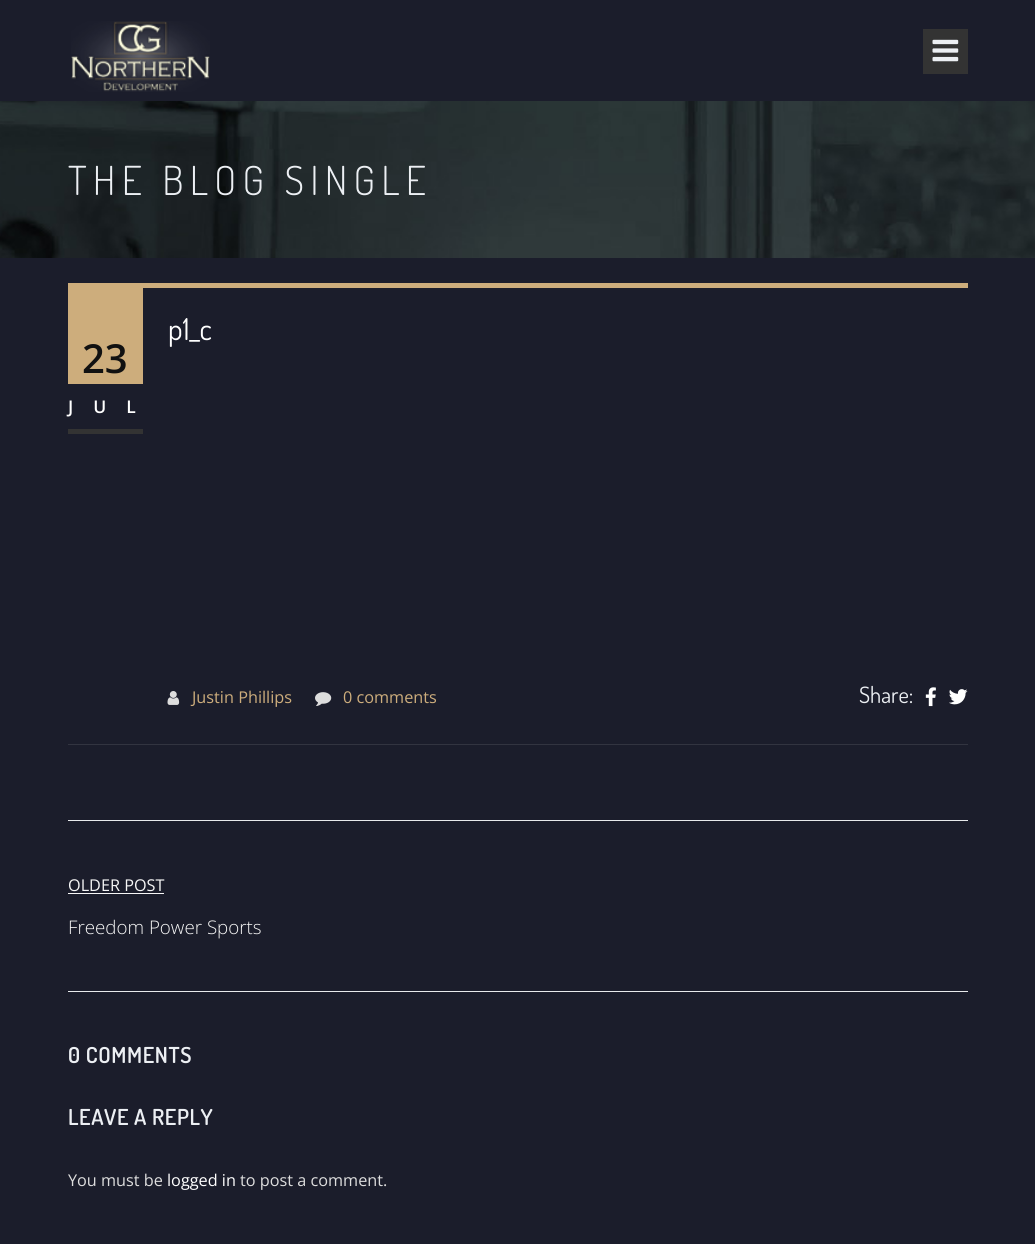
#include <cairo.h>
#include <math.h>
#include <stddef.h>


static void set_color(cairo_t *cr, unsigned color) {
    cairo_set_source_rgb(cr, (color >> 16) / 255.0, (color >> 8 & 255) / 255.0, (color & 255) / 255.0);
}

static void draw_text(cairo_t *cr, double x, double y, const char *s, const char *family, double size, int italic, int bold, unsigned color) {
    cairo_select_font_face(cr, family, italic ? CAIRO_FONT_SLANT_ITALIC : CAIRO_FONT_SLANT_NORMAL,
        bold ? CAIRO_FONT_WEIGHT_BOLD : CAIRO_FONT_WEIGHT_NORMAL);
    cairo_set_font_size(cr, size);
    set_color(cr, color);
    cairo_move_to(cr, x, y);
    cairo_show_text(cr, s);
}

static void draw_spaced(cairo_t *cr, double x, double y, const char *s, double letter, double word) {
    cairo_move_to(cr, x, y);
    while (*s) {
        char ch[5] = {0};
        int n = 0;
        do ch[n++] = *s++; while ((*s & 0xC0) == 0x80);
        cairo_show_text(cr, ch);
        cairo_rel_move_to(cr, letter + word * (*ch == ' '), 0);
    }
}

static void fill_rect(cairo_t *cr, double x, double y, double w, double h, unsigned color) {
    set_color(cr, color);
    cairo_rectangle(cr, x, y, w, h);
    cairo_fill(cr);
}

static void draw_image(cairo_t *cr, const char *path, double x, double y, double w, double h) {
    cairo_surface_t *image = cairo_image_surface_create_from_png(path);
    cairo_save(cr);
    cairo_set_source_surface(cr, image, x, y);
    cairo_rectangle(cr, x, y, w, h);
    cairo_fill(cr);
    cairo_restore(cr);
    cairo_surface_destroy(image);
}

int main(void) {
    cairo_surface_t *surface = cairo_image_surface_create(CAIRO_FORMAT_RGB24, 1035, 1244);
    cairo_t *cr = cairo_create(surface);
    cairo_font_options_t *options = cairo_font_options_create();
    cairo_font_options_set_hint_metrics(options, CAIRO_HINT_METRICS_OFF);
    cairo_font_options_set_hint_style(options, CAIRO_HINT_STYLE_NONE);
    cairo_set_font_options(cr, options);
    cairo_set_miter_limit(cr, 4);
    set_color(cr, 0x1B1D2B);
    cairo_paint(cr);
    draw_image(cr, "assets/img1.png", 71, 21, 139, 71);
    fill_rect(cr, 923, 29, 45, 45, 0x333333);
    draw_image(cr, "assets/img2.png", 932, 39, 27, 23);
    draw_image(cr, "assets/img3.png", 0, 101, 1035, 157);
    cairo_select_font_face(cr, "Dosis Light", CAIRO_FONT_SLANT_NORMAL, CAIRO_FONT_WEIGHT_NORMAL);
    cairo_set_font_size(cr, 40);
    set_color(cr, 0xECEFF3);
    draw_spaced(cr, 68, 195, "THE BLOG SINGLE", 6.25, 0);
    fill_rect(cr, 68, 744, 900, 1, 0x323440);
    fill_rect(cr, 68, 283, 900, 5, 0xCDAD7C);
    draw_text(cr, 168, 340, "p1_c", "Dosis", 30, 0, 0, 0xFFFFFF);
    fill_rect(cr, 68, 288, 75, 96, 0xCDAD7C);
    draw_text(cr, 82, 373, "23", "Open Sans SemiBold", 40, 0, 0, 0x111111);
    fill_rect(cr, 68, 429, 75, 5, 0x333333);
    cairo_set_font_size(cr, 17.5);
    set_color(cr, 0xFFFFFF);
    draw_spaced(cr, 68, 413, "JUL", 20, 0);
    draw_image(cr, "assets/img4.png", 167, 691, 13, 14);
    draw_text(cr, 192, 703, "Justin Phillips", "Open Sans", 16.25, 0, 0, 0xCDAD7C);
    draw_image(cr, "assets/img5.png", 315, 692, 17, 14);
    draw_text(cr, 343, 703, "0 comments", "Open Sans", 16.25, 0, 0, 0xCDAD7C);
    draw_text(cr, 859, 703, "Share:", "Dosis", 22.5, 0, 0, 0xECEFF3);
    draw_image(cr, "assets/img6.png", 925, 687, 11, 20);
    draw_image(cr, "assets/img7.png", 949, 689, 19, 16);
    fill_rect(cr, 68, 820, 900, 1, 0xE8EAEC);
    fill_rect(cr, 68, 991, 900, 1, 0xE8EAEC);
    draw_text(cr, 68, 891, "OLDER POST", "Open Sans", 16.25, 0, 0, 0xF6F6F6);
    fill_rect(cr, 68, 893, 96, 1, 0xF6F6F6);
    draw_text(cr, 68, 934, "Freedom Power Sports", "Open Sans Light", 18.75, 0, 0, 0xF6F6F6);
    cairo_select_font_face(cr, "Dosis SemiBold", CAIRO_FONT_SLANT_NORMAL, CAIRO_FONT_WEIGHT_NORMAL);
    cairo_set_font_size(cr, 22);
    set_color(cr, 0xECEFF3);
    draw_spaced(cr, 68, 1063, "0 COMMENTS", 0.6, 0);
    draw_spaced(cr, 68, 1125, "LEAVE A REPLY", 0.6, 0);
    draw_text(cr, 68, 1186, "You must be", "Open Sans", 16.25, 0, 0, 0xDDDDDD);
    draw_text(cr, 167, 1186, "logged in", "Open Sans", 16.25, 0, 0, 0xFFFFFF);
    draw_text(cr, 240, 1186, "to post a comment.", "Open Sans", 16.25, 0, 0, 0xDDDDDD);
    cairo_surface_write_to_png(surface, "output.png");
    cairo_font_options_destroy(options);
    cairo_destroy(cr);
    cairo_surface_destroy(surface);
    return 0;
}
